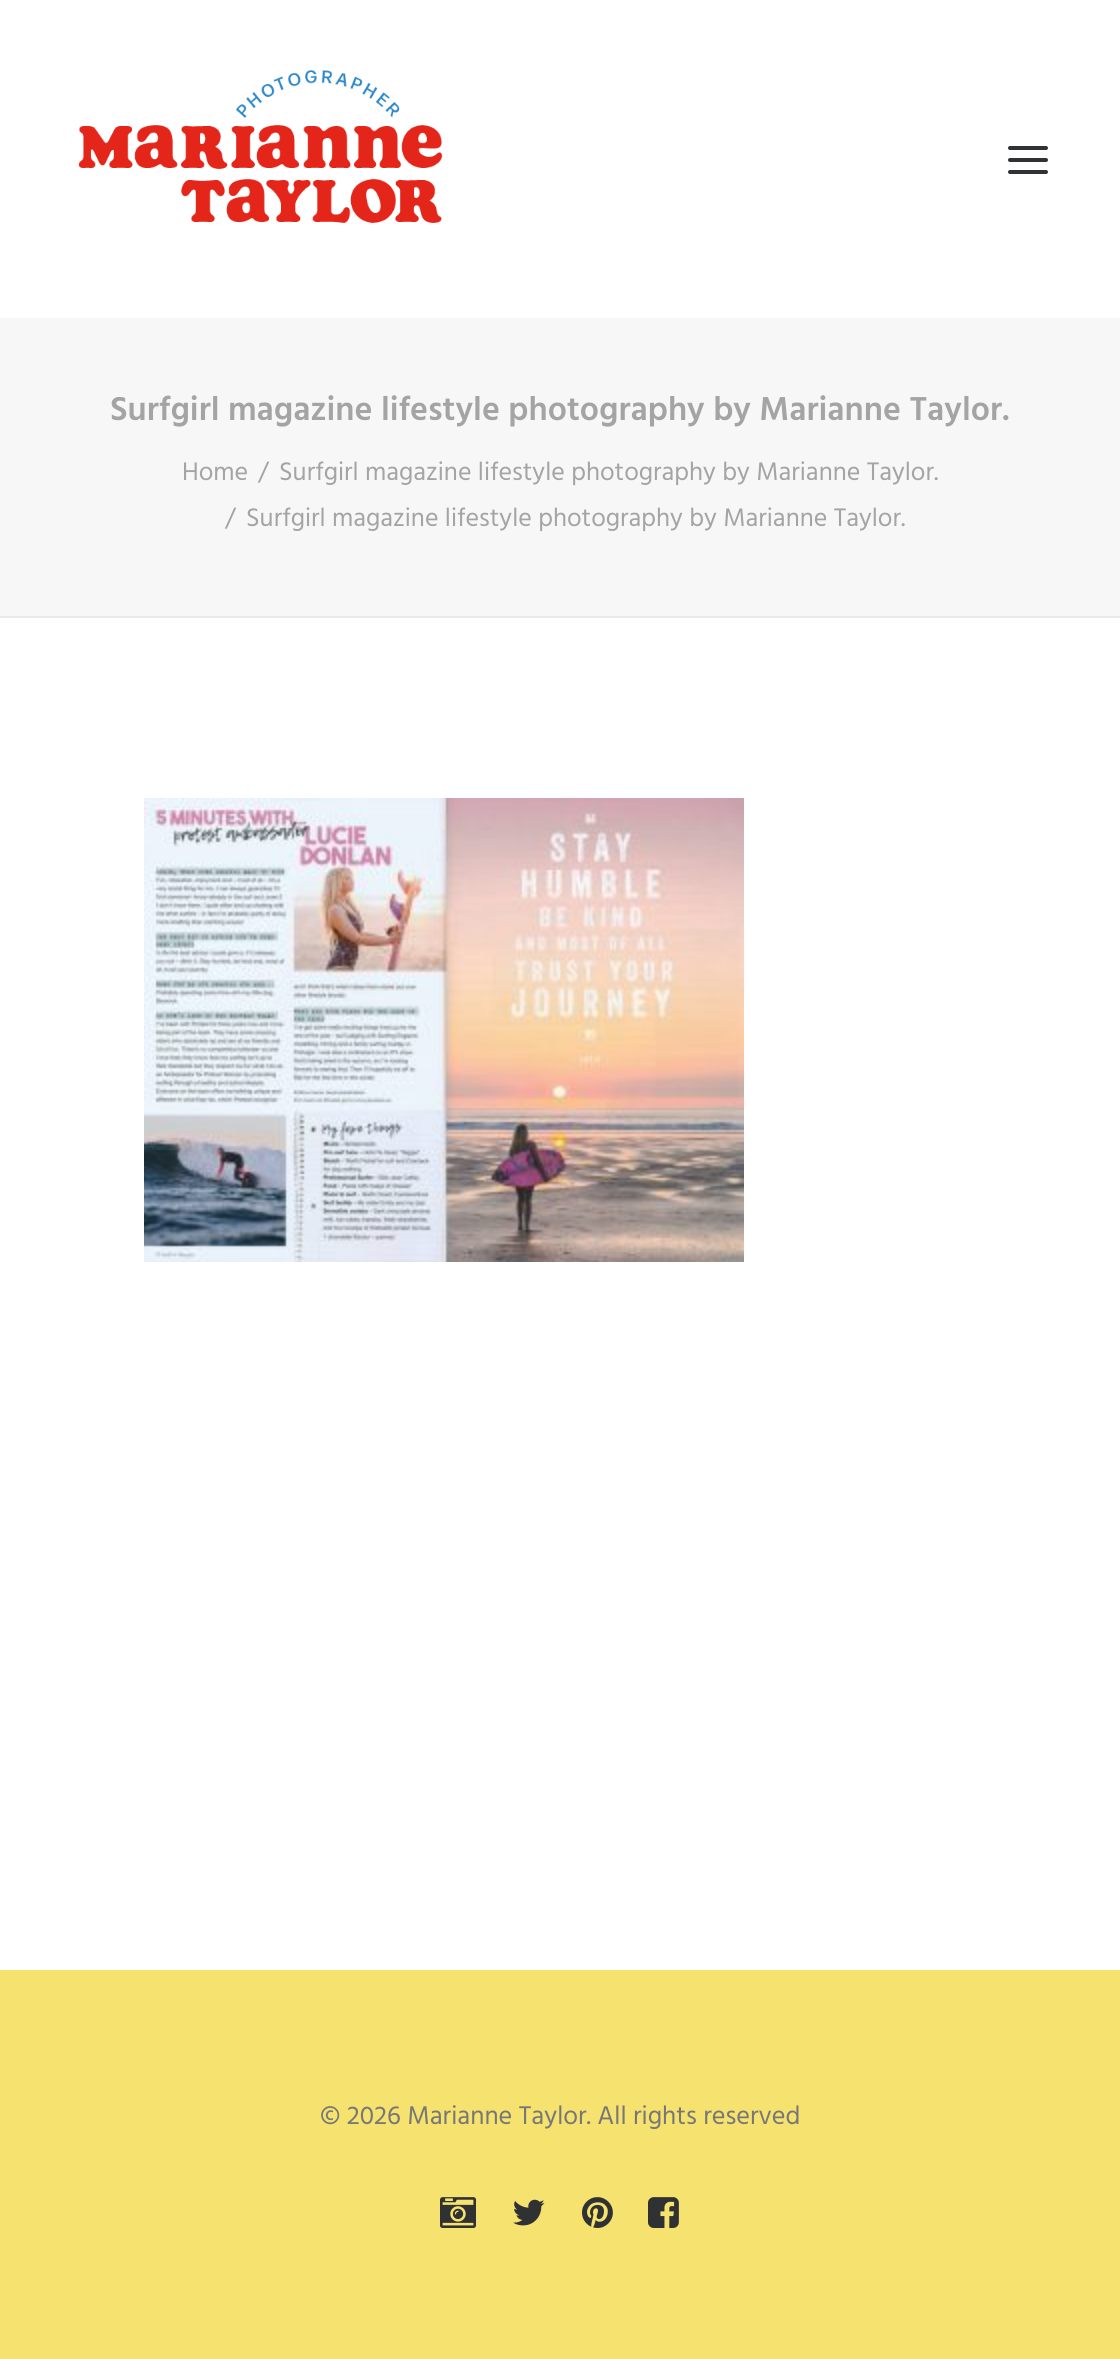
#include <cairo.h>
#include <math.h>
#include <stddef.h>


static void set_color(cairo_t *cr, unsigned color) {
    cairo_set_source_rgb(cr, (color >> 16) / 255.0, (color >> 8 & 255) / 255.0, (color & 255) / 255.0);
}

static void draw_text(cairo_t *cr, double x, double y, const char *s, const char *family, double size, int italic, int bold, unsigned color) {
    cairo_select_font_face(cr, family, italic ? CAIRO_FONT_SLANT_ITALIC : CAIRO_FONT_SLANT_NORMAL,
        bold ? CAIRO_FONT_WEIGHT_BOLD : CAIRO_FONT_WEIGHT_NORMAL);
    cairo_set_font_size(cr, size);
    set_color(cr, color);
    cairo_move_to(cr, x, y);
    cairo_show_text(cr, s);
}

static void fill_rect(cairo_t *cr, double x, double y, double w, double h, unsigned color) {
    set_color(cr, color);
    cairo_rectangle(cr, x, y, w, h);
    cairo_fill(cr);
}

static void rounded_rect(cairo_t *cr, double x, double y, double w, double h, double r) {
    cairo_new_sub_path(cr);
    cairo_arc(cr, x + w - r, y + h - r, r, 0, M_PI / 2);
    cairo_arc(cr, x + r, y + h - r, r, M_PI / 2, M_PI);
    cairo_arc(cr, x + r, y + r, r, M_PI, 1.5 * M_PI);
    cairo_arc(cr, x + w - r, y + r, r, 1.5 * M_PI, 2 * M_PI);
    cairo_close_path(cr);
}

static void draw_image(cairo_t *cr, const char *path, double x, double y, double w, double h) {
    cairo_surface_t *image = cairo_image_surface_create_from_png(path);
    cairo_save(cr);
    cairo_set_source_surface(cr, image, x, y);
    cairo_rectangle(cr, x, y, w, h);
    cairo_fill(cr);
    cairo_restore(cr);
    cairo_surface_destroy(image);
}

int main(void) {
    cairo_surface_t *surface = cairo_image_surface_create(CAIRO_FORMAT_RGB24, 1120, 2359);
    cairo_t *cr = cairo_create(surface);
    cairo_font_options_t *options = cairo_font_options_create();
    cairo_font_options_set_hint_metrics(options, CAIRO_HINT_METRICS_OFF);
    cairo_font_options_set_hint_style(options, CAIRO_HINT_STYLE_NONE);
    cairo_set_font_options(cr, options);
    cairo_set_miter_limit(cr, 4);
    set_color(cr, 0xF7F7F7);
    cairo_paint(cr);
    fill_rect(cr, 0, 0, 1120, 318, 0xFFFFFF);
    draw_image(cr, "assets/img1.png", 78, 69, 364, 154);
    set_color(cr, 0x303133);
    rounded_rect(cr, 1008, 158, 40, 4, 2);
    cairo_fill(cr);
    rounded_rect(cr, 1008, 146, 40, 4, 2);
    cairo_fill(cr);
    rounded_rect(cr, 1008, 170, 40, 4, 2);
    cairo_fill(cr);
    fill_rect(cr, 0, 616, 1120, 2, 0xEAEAEA);
    draw_text(cr, 110, 420, "Surfgirl magazine lifestyle photography by Marianne Taylor.", "Hind SemiBold", 34, 0, 0, 0xA4A4A4);
    draw_text(cr, 182, 480, "Home", "Hind", 26, 0, 0, 0xA4A4A4);
    draw_text(cr, 258, 480, "/", "Hind", 26, 0, 0, 0xA4A4A4);
    draw_text(cr, 279, 480, "Surfgirl magazine lifestyle photography by Marianne Taylor.", "Hind", 26, 0, 0, 0xA4A4A4);
    draw_text(cr, 225, 526, "/", "Hind", 26, 0, 0, 0xA4A4A4);
    draw_text(cr, 246, 526, "Surfgirl magazine lifestyle photography by Marianne Taylor.", "Hind", 26, 0, 0, 0xA4A4A4);
    fill_rect(cr, 0, 618, 1120, 1352, 0xFFFFFF);
    draw_image(cr, "assets/img2.png", 144, 798, 600, 464);
    fill_rect(cr, 0, 1970, 1120, 389, 0xF5E26F);
    draw_text(cr, 320, 2124, "© 2026 Marianne Taylor. All rights reserved", "Hind", 26.25, 0, 0, 0x777777);
    draw_image(cr, "assets/img3.png", 440, 2197, 36, 31);
    draw_image(cr, "assets/img4.png", 513, 2199, 32, 27);
    draw_image(cr, "assets/img5.png", 582, 2197, 31, 31);
    draw_image(cr, "assets/img6.png", 648, 2197, 31, 31);
    cairo_surface_write_to_png(surface, "output.png");
    cairo_font_options_destroy(options);
    cairo_destroy(cr);
    cairo_surface_destroy(surface);
    return 0;
}
